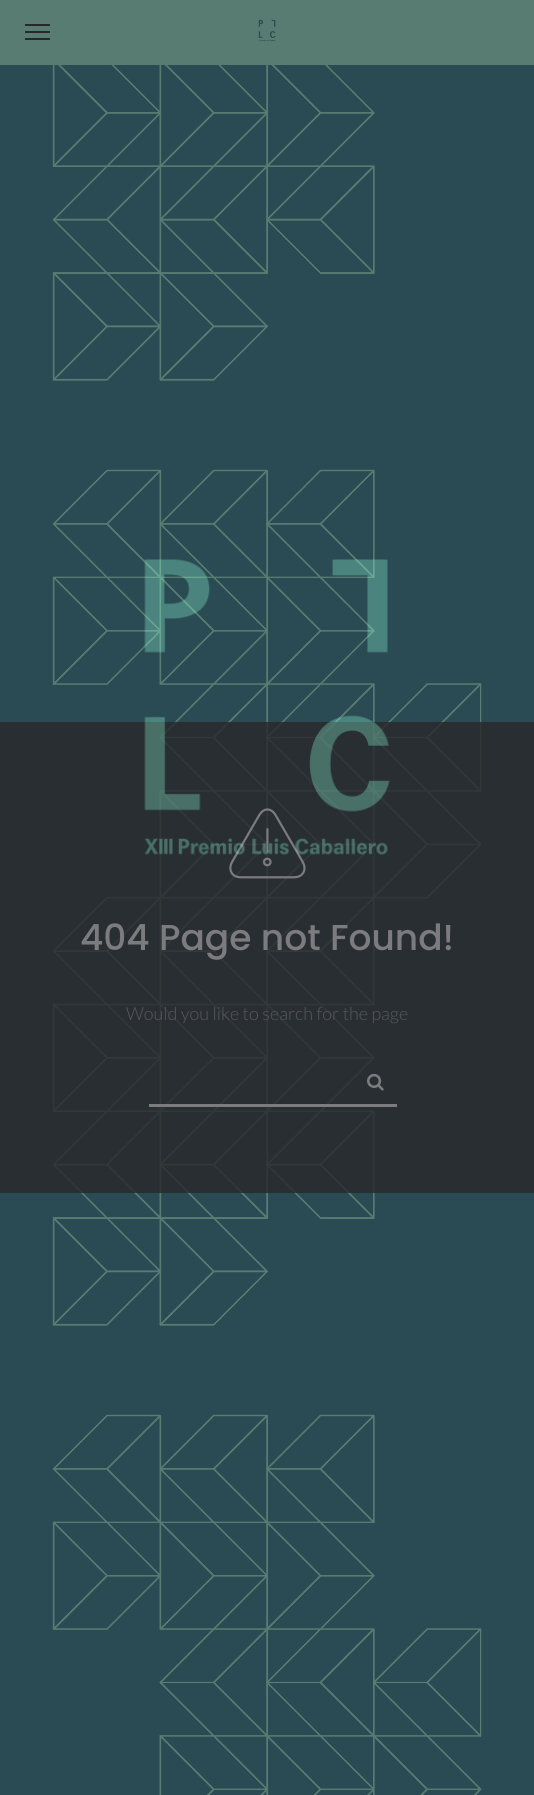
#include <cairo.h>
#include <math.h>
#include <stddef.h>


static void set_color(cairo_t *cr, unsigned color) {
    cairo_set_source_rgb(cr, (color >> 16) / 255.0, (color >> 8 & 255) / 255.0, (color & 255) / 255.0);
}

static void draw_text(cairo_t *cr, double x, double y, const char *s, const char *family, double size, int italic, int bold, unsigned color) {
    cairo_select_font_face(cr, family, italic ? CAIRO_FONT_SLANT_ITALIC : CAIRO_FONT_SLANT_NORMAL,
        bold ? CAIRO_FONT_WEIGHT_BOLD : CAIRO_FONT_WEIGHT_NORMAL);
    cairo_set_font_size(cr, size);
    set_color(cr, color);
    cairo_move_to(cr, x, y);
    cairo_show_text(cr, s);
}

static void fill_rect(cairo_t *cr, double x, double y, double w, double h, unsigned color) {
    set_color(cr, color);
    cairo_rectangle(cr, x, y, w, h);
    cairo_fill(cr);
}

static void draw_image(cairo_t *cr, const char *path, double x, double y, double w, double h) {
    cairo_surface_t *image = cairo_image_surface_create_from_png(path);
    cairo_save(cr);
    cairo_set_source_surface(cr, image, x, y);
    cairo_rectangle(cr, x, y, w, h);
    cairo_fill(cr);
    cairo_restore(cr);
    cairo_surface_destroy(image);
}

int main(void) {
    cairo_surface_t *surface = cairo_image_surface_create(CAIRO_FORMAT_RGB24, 534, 1795);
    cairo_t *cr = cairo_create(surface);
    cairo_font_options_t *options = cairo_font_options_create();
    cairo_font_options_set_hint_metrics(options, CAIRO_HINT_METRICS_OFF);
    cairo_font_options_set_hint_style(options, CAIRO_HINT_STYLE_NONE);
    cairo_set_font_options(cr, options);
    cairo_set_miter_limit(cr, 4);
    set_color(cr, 0x2A4B53);
    cairo_paint(cr);
    draw_image(cr, "assets/img1.png", 52, 65, 430, 1730);
    fill_rect(cr, 0, 0, 534, 65, 0x587B72);
    draw_image(cr, "assets/img2.png", 258, 19, 18, 23);
    fill_rect(cr, 25, 31, 25, 2, 0x28272A);
    fill_rect(cr, 25, 24, 25, 2, 0x28272A);
    fill_rect(cr, 25, 38, 25, 2, 0x28272A);
    cairo_set_source_rgba(cr, 0.157, 0.153, 0.165, 0.8);
    cairo_rectangle(cr, 0, 722, 534, 471);
    cairo_fill(cr);
    draw_image(cr, "assets/img4.png", 229, 808, 77, 71);
    draw_image(cr, "assets/img3.png", 144, 559, 246, 296);
    draw_text(cr, 80, 950, "404 Page not Found!", "Poppins Medium", 36, 0, 0, 0x7C7B7E);
    draw_text(cr, 126, 1020, "Would you like to search for the page", "Lato Light", 18, 0, 0, 0x5A585C);
    draw_image(cr, "assets/img5.png", 367, 1073, 17, 18);
    fill_rect(cr, 149, 1104, 248, 3, 0x7C7B7E);
    cairo_surface_write_to_png(surface, "output.png");
    cairo_font_options_destroy(options);
    cairo_destroy(cr);
    cairo_surface_destroy(surface);
    return 0;
}
